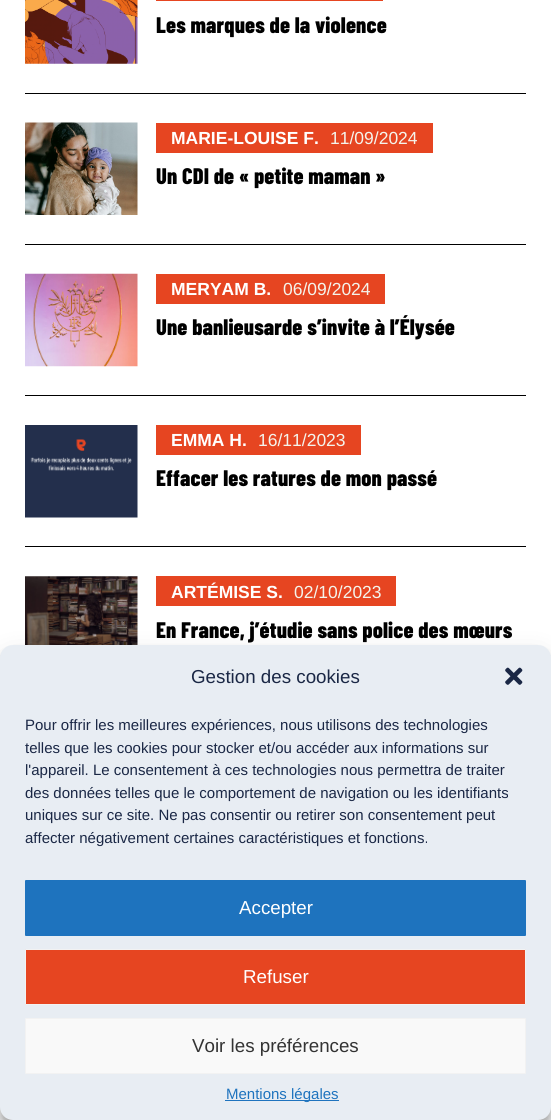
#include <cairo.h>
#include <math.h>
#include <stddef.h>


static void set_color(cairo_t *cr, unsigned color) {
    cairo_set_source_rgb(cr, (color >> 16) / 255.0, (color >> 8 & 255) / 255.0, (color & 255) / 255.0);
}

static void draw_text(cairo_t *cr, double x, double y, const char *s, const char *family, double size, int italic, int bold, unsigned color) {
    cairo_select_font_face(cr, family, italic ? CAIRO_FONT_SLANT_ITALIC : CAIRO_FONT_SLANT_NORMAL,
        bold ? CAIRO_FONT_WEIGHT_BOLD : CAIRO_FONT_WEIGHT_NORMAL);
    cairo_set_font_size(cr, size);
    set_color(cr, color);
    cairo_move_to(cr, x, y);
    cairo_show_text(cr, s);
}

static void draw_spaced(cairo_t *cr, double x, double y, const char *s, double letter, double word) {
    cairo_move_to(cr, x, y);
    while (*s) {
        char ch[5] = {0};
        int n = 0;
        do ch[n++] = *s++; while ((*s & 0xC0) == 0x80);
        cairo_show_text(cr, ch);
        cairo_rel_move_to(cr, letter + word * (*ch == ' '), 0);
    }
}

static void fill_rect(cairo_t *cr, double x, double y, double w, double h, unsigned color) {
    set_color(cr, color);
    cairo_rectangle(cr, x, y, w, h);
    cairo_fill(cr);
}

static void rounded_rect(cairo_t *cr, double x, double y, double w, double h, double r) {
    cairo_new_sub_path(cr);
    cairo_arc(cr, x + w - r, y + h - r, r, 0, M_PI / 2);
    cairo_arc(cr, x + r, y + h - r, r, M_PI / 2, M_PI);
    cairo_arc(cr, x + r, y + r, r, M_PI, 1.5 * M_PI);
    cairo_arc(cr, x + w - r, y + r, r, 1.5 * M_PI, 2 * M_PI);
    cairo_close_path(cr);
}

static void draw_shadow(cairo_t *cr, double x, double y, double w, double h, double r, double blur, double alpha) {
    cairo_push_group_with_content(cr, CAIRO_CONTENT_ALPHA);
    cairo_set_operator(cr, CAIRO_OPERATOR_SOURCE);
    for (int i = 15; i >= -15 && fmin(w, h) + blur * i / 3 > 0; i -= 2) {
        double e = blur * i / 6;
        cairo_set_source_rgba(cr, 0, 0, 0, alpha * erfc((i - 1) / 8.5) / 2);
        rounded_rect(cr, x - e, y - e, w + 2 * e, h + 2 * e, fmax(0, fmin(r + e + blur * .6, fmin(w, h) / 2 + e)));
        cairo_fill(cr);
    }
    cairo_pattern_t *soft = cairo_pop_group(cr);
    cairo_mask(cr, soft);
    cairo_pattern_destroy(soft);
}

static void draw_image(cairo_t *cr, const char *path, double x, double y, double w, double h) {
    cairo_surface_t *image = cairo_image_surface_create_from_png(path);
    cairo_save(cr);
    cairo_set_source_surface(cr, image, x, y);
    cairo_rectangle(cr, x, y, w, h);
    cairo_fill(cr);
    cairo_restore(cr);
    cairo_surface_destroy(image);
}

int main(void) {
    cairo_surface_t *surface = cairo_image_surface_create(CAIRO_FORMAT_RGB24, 551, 1120);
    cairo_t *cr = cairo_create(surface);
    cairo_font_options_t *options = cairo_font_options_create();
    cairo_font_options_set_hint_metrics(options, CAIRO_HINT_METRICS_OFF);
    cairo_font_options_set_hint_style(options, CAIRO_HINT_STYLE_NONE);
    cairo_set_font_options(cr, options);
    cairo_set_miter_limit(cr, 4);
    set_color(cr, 0xFFFFFF);
    cairo_paint(cr);
    draw_image(cr, "assets/img1.png", 25, 0, 113, 64);
    fill_rect(cr, 156, 0, 227, 1, 0xE64521);
    cairo_select_font_face(cr, "Barlow Condensed ExtraBold", CAIRO_FONT_SLANT_NORMAL, CAIRO_FONT_WEIGHT_NORMAL);
    cairo_set_font_size(cr, 22.5);
    set_color(cr, 0x000000);
    draw_spaced(cr, 156, 33, "Les marques de la violence", 0.15, 0);
    fill_rect(cr, 25, 93, 501, 1, 0x000000);
    draw_image(cr, "assets/img2.png", 25, 122, 113, 93);
    fill_rect(cr, 156, 123, 277, 30, 0xE64521);
    draw_text(cr, 171, 144, "MARIE-LOUISE F.", "Liberation Sans", 17.5, 0, 1, 0xFFFFFF);
    draw_text(cr, 330, 144, "11/09/2024", "Liberation Sans", 17.5, 0, 0, 0xF4F4EC);
    cairo_select_font_face(cr, "Barlow Condensed ExtraBold", CAIRO_FONT_SLANT_NORMAL, CAIRO_FONT_WEIGHT_NORMAL);
    cairo_set_font_size(cr, 22.5);
    set_color(cr, 0x000000);
    draw_spaced(cr, 156, 184, "Un CDI de « petite maman »", 0.15, 0);
    fill_rect(cr, 25, 244, 501, 1, 0x000000);
    draw_image(cr, "assets/img3.png", 25, 273, 113, 94);
    fill_rect(cr, 156, 274, 229, 30, 0xE64521);
    draw_text(cr, 171, 295, "MERYAM B.", "Liberation Sans", 17.5, 0, 1, 0xFFFFFF);
    draw_text(cr, 283, 295, "06/09/2024", "Liberation Sans", 17.5, 0, 0, 0xF4F4EC);
    cairo_select_font_face(cr, "Barlow Condensed ExtraBold", CAIRO_FONT_SLANT_NORMAL, CAIRO_FONT_WEIGHT_NORMAL);
    cairo_set_font_size(cr, 22.5);
    set_color(cr, 0x000000);
    draw_spaced(cr, 156, 335, "Une banlieusarde s’invite à l’Élysée", 0.15, 0);
    fill_rect(cr, 25, 395, 501, 1, 0x000000);
    draw_image(cr, "assets/img4.png", 25, 425, 113, 93);
    fill_rect(cr, 156, 425, 205, 30, 0xE64521);
    draw_text(cr, 171, 446, "EMMA H.", "Liberation Sans", 17.5, 0, 1, 0xFFFFFF);
    draw_text(cr, 258, 446, "16/11/2023", "Liberation Sans", 17.5, 0, 0, 0xF4F4EC);
    cairo_select_font_face(cr, "Barlow Condensed ExtraBold", CAIRO_FONT_SLANT_NORMAL, CAIRO_FONT_WEIGHT_NORMAL);
    cairo_set_font_size(cr, 22.5);
    set_color(cr, 0x000000);
    draw_spaced(cr, 156, 486, "Effacer les ratures de mon passé", 0.15, 0);
    fill_rect(cr, 25, 546, 501, 1, 0x000000);
    draw_image(cr, "assets/img5.png", 25, 576, 113, 69);
    fill_rect(cr, 156, 576, 240, 30, 0xE64521);
    draw_text(cr, 171, 598, "ARTÉMISE S.", "Liberation Sans", 17.5, 0, 1, 0xFFFFFF);
    draw_text(cr, 294, 598, "02/10/2023", "Liberation Sans", 17.5, 0, 0, 0xF4F4EC);
    cairo_select_font_face(cr, "Barlow Condensed ExtraBold", CAIRO_FONT_SLANT_NORMAL, CAIRO_FONT_WEIGHT_NORMAL);
    cairo_set_font_size(cr, 22.5);
    set_color(cr, 0x000000);
    draw_spaced(cr, 156, 638, "En France, j’étudie sans police des mœurs", 0.15, 0);
    set_color(cr, 0x000000);
    draw_shadow(cr, 0, 653, 551, 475, 13, 4, 0.23);
    draw_shadow(cr, 0, 658, 551, 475, 13, 12.5, 0.19);
    set_color(cr, 0xE8EDF3);
    rounded_rect(cr, 0, 645, 551, 475, 13);
    cairo_fill(cr);
    draw_text(cr, 191, 683, "Gestion des cookies", "Liberation Sans", 18.75, 0, 0, 0x1A2745);
    draw_image(cr, "assets/img6.png", 505, 667, 18, 18);
    draw_text(cr, 25, 730, "Pour offrir les meilleures expériences, nous utilisons des technologies", "Liberation Sans", 15, 0, 0, 0x1A2745);
    draw_text(cr, 25, 753, "telles que les cookies pour stocker et/ou accéder aux informations sur", "Liberation Sans", 15, 0, 0, 0x1A2745);
    draw_text(cr, 25, 775, "l'appareil. Le consentement à ces technologies nous permettra de traiter", "Liberation Sans", 15, 0, 0, 0x1A2745);
    draw_text(cr, 25, 798, "des données telles que le comportement de navigation ou les identifiants", "Liberation Sans", 15, 0, 0, 0x1A2745);
    draw_text(cr, 25, 820, "uniques sur ce site. Ne pas consentir ou retirer son consentement peut", "Liberation Sans", 15, 0, 0, 0x1A2745);
    draw_text(cr, 25, 843, "affecter négativement certaines caractéristiques et fonctions.", "Liberation Sans", 15, 0, 0, 0x1A2745);
    set_color(cr, 0x1E73BE);
    rounded_rect(cr, 25.5, 880.5, 500, 55, 0.5);
    cairo_fill_preserve(cr);
    cairo_set_line_width(cr, 1);
    cairo_stroke(cr);
    draw_text(cr, 239, 914, "Accepter", "Liberation Sans", 18.75, 0, 0, 0xFFFFFF);
    set_color(cr, 0xE64521);
    rounded_rect(cr, 25.5, 949.5, 500, 55, 0.5);
    cairo_fill_preserve(cr);
    set_color(cr, 0xF2F2F2);
    cairo_stroke(cr);
    draw_text(cr, 243, 983, "Refuser", "Liberation Sans", 18.75, 0, 0, 0xFFFFFF);
    set_color(cr, 0xF9F9F9);
    rounded_rect(cr, 25.5, 1018.5, 500, 55, 0.5);
    cairo_fill_preserve(cr);
    set_color(cr, 0xF2F2F2);
    cairo_stroke(cr);
    draw_text(cr, 192, 1052, "Voir les préférences", "Liberation Sans", 18.75, 0, 0, 0x333333);
    fill_rect(cr, 225, 1100, 114, 1, 0x1E73BE);
    draw_text(cr, 226, 1099, "Mentions légales", "Liberation Sans", 15, 0, 0, 0x1E73BE);
    cairo_surface_write_to_png(surface, "output.png");
    cairo_font_options_destroy(options);
    cairo_destroy(cr);
    cairo_surface_destroy(surface);
    return 0;
}
